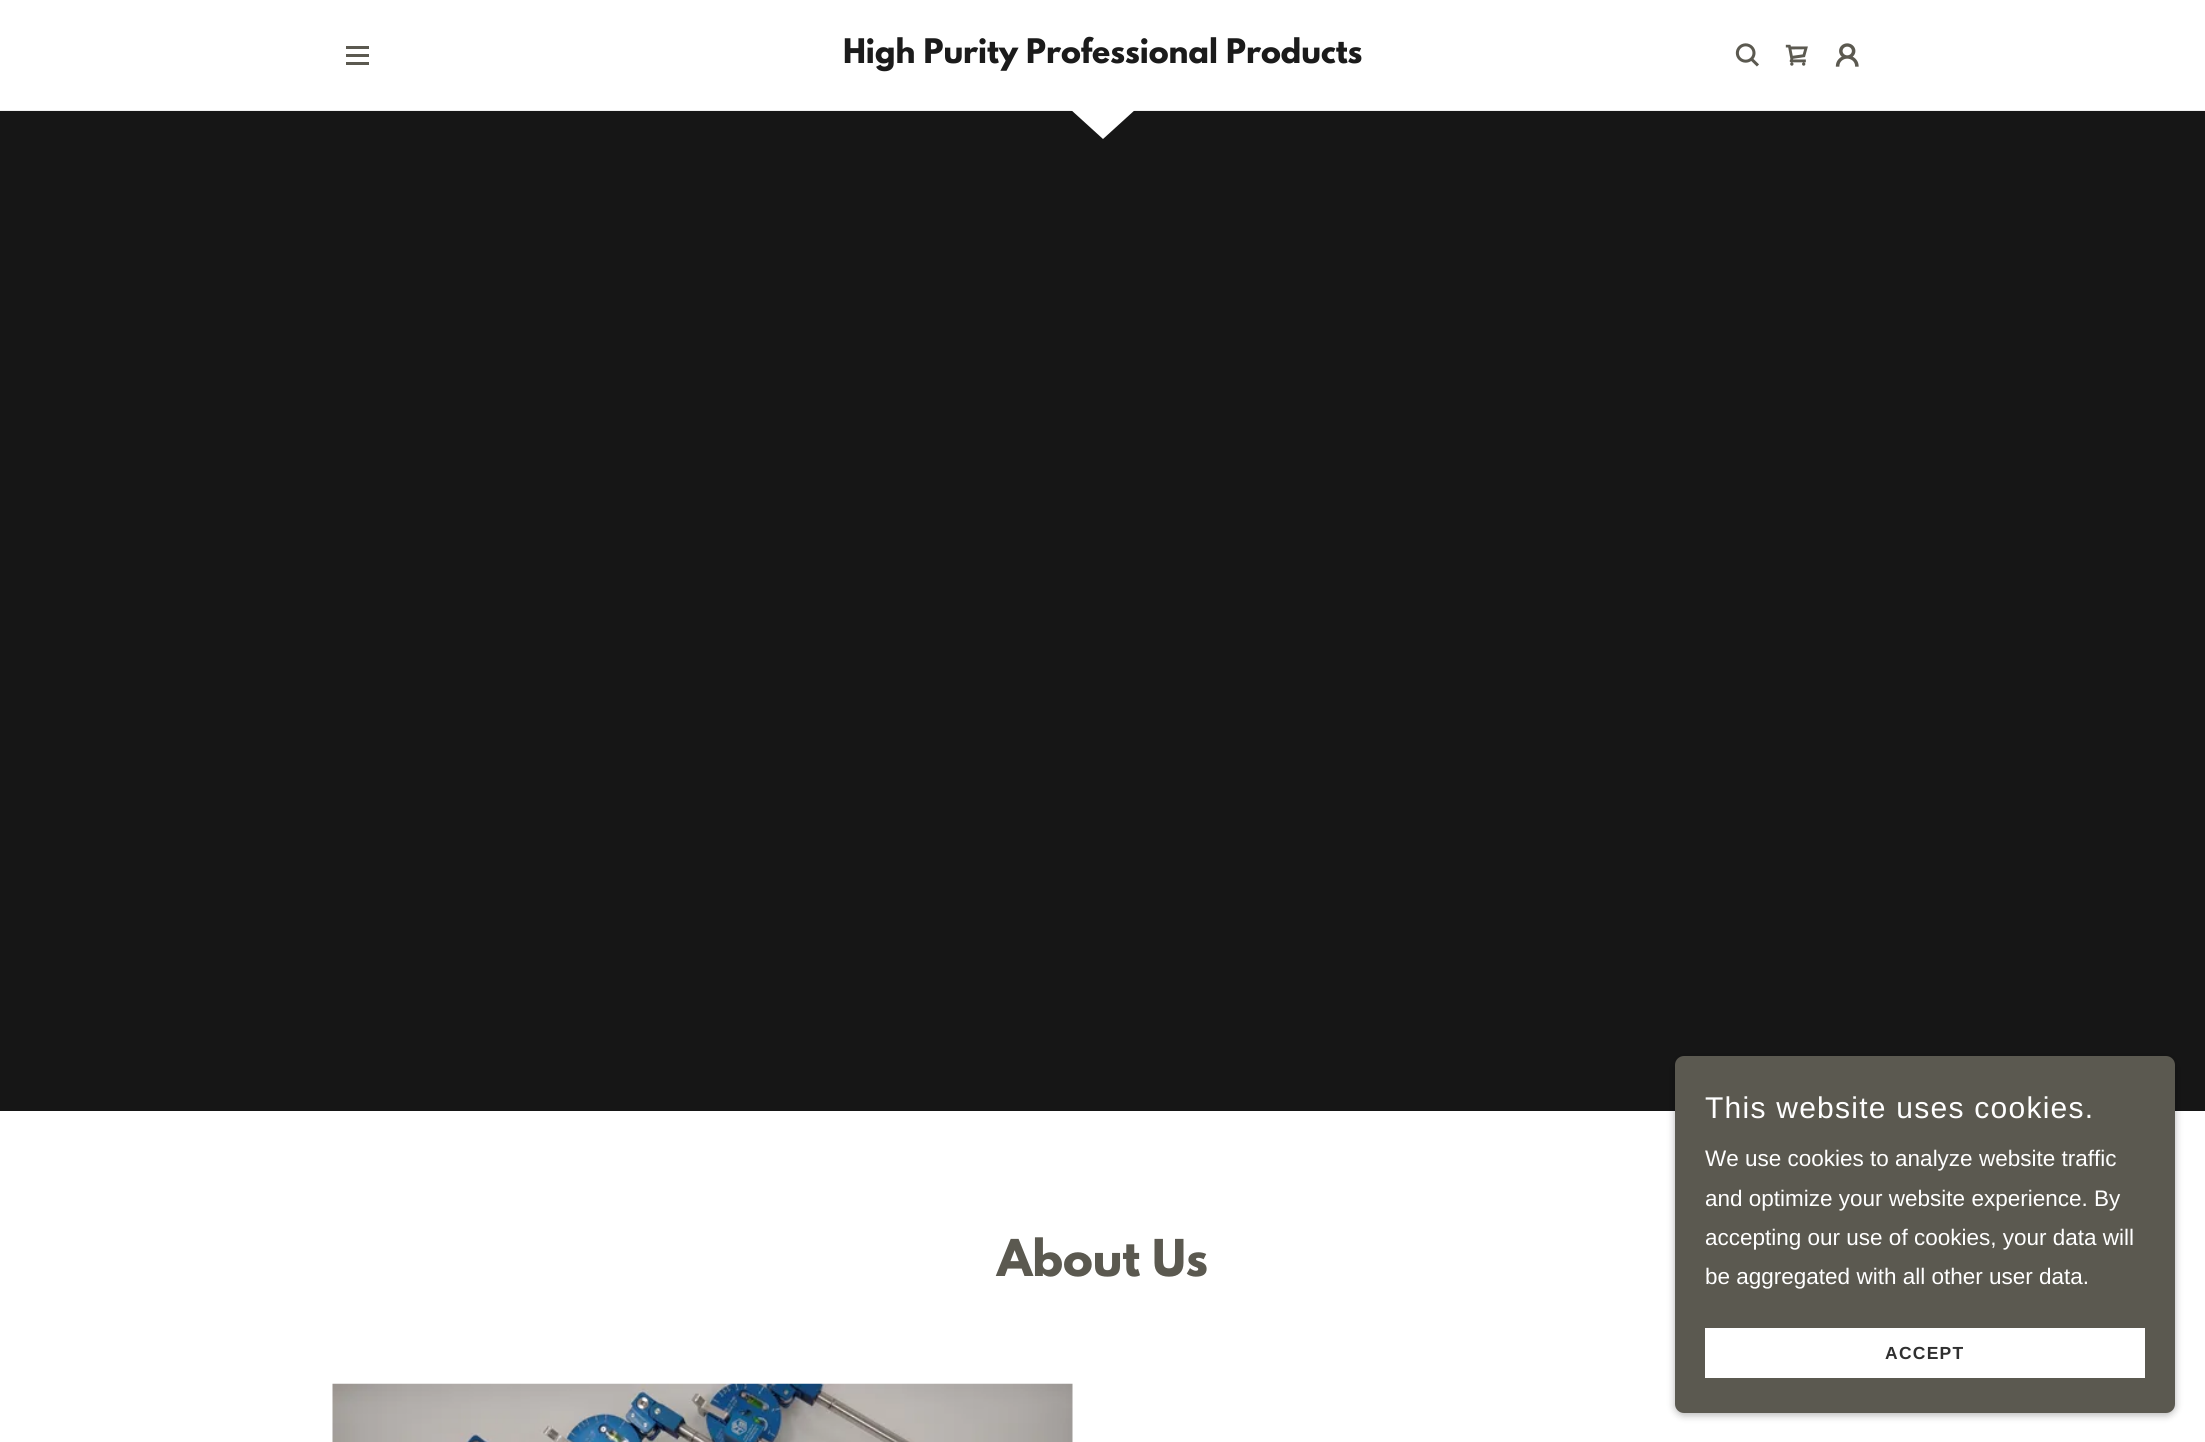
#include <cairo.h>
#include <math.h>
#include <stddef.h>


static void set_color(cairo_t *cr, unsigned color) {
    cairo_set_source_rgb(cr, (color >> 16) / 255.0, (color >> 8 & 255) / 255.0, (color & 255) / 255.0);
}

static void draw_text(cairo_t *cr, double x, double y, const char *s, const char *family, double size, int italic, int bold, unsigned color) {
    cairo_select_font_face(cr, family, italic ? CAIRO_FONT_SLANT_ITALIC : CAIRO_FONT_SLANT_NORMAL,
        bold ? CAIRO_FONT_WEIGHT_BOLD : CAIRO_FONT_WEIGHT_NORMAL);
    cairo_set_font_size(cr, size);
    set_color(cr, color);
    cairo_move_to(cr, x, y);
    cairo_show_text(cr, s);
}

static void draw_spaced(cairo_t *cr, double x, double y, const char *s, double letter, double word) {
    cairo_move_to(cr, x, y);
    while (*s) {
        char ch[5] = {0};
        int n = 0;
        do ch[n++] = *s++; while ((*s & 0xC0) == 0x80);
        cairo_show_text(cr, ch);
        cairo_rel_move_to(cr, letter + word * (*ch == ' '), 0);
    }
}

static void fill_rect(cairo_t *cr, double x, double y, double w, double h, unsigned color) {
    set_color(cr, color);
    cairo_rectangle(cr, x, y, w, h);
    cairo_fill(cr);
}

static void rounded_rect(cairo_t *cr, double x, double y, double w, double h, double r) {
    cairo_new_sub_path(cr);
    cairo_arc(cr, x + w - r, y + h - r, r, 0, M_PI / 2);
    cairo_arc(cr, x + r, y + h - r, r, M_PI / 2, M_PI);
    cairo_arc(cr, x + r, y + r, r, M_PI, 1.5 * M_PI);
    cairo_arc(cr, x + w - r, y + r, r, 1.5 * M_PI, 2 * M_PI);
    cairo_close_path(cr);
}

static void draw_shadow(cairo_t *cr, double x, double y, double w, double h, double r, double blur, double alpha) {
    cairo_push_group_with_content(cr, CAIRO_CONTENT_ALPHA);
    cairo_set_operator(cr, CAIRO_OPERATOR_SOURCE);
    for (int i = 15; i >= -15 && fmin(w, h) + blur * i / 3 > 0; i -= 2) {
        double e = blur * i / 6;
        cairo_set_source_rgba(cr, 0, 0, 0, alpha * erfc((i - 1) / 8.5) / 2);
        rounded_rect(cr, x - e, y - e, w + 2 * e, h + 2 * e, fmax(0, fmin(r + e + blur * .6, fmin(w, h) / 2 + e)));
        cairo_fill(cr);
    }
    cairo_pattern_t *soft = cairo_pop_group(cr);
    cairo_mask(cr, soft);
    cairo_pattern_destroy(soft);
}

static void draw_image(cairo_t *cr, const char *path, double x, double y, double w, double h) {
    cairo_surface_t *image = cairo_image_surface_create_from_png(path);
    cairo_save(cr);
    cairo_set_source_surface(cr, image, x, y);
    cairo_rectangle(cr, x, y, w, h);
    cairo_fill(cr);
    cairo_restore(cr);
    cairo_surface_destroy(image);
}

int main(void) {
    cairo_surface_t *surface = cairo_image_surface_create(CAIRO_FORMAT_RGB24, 2205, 1442);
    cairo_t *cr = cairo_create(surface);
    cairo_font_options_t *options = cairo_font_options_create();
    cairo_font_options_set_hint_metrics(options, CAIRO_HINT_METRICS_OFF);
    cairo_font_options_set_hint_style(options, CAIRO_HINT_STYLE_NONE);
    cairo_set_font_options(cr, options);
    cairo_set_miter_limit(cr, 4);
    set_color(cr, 0xFFFFFF);
    cairo_paint(cr);
    fill_rect(cr, 0, 111, 2205, 1000, 0x161616);
    fill_rect(cr, 0, 110, 2205, 1, 0xEFEFEF);
    fill_rect(cr, 346, 46, 23, 3, 0x5B5950);
    fill_rect(cr, 346, 54, 23, 3, 0x5B5950);
    fill_rect(cr, 346, 62, 23, 3, 0x5B5950);
    draw_text(cr, 843, 63, "High Purity Professional Products", "League Spartan", 30, 0, 1, 0x1B1B1B);
    draw_image(cr, "assets/img1.png", 1735, 43, 24, 24);
    draw_image(cr, "assets/img2.png", 1785, 44, 23, 22);
    draw_image(cr, "assets/img3.png", 1835, 43, 24, 24);
    set_color(cr, 0xFFFFFF);
    cairo_set_fill_rule(cr, CAIRO_FILL_RULE_EVEN_ODD);
    cairo_new_path(cr);
    cairo_move_to(cr, 1103, 139);
    cairo_line_to(cr, 1136, 109);
    cairo_line_to(cr, 1070, 109);
    cairo_close_path(cr);
    cairo_fill(cr);
    draw_text(cr, 997, 1276, "About Us", "League Spartan", 45, 0, 1, 0x5B5950);
    draw_image(cr, "assets/img4.png", 332, 1383, 741, 59);
    set_color(cr, 0x000000);
    draw_shadow(cr, 1675, 1059, 500, 356, 9, 4, 0.3);
    set_color(cr, 0x5B5950);
    rounded_rect(cr, 1675, 1056, 500, 357, 9);
    cairo_fill(cr);
    cairo_select_font_face(cr, "Liberation Sans", CAIRO_FONT_SLANT_NORMAL, CAIRO_FONT_WEIGHT_NORMAL);
    cairo_set_font_size(cr, 30);
    set_color(cr, 0xFFFFFF);
    draw_spaced(cr, 1705, 1118, "This website uses cookies.", 1.25, 0);
    draw_text(cr, 1705, 1166, "We use cookies to analyze website traffic", "Liberation Sans", 22.5, 0, 0, 0xFFFFFF);
    draw_text(cr, 1705, 1206, "and optimize your website experience. By", "Liberation Sans", 22.5, 0, 0, 0xFFFFFF);
    draw_text(cr, 1705, 1245, "accepting our use of cookies, your data will", "Liberation Sans", 22.5, 0, 0, 0xFFFFFF);
    draw_text(cr, 1705, 1284, "be aggregated with all other user data.", "Liberation Sans", 22.5, 0, 0, 0xFFFFFF);
    fill_rect(cr, 1705, 1328, 440, 50, 0xFFFFFF);
    cairo_select_font_face(cr, "Liberation Sans", CAIRO_FONT_SLANT_NORMAL, CAIRO_FONT_WEIGHT_BOLD);
    cairo_set_font_size(cr, 17.5);
    set_color(cr, 0x303030);
    draw_spaced(cr, 1885, 1359, "ACCEPT", 1.25, 0);
    cairo_surface_write_to_png(surface, "output.png");
    cairo_font_options_destroy(options);
    cairo_destroy(cr);
    cairo_surface_destroy(surface);
    return 0;
}
